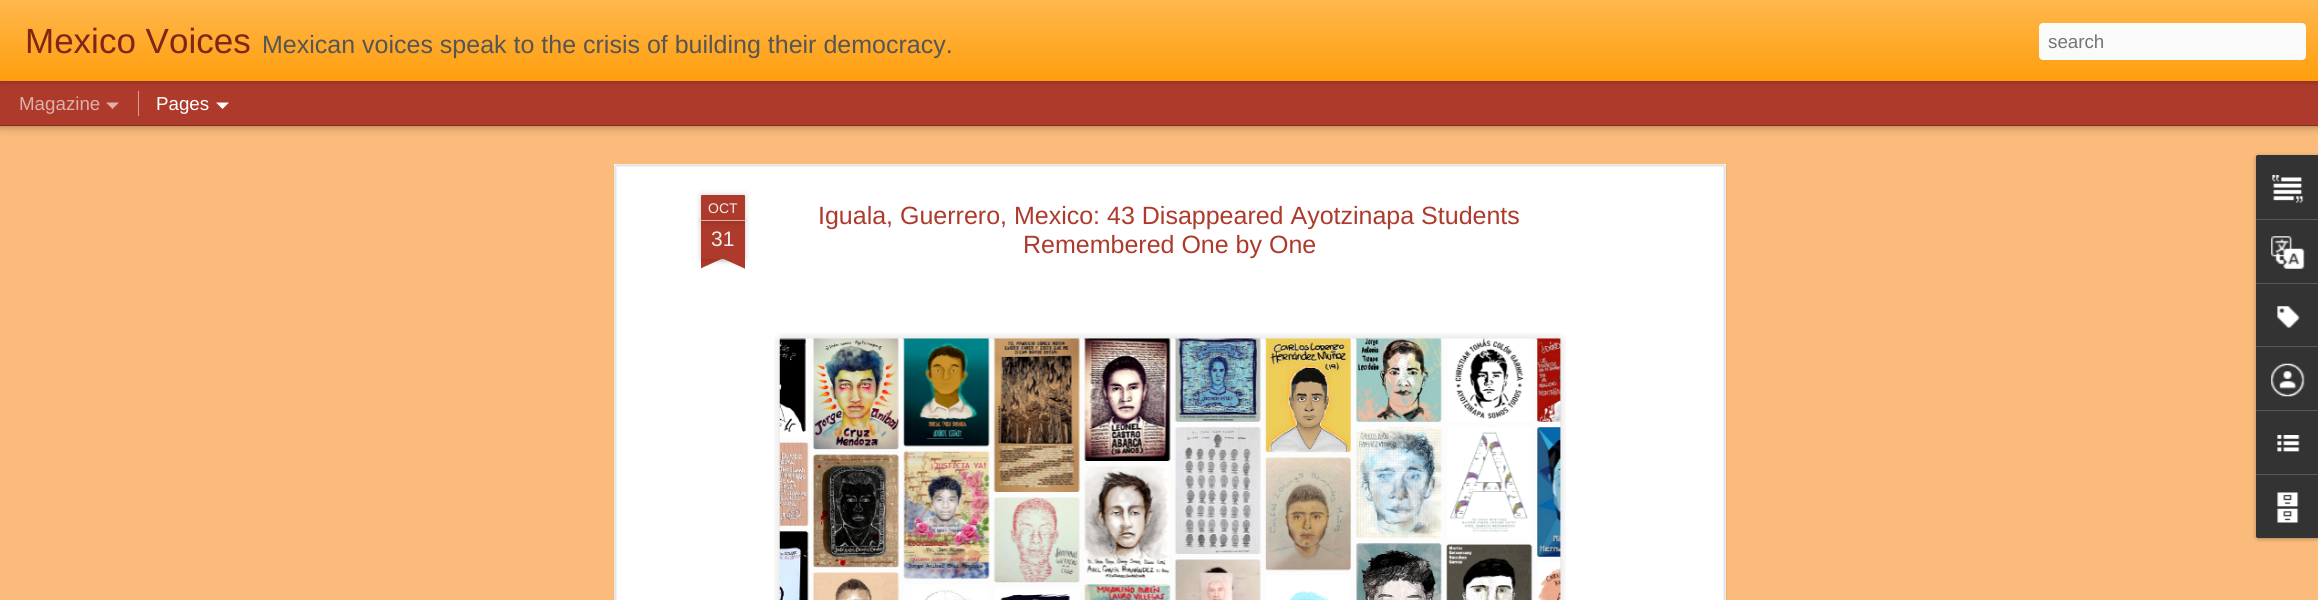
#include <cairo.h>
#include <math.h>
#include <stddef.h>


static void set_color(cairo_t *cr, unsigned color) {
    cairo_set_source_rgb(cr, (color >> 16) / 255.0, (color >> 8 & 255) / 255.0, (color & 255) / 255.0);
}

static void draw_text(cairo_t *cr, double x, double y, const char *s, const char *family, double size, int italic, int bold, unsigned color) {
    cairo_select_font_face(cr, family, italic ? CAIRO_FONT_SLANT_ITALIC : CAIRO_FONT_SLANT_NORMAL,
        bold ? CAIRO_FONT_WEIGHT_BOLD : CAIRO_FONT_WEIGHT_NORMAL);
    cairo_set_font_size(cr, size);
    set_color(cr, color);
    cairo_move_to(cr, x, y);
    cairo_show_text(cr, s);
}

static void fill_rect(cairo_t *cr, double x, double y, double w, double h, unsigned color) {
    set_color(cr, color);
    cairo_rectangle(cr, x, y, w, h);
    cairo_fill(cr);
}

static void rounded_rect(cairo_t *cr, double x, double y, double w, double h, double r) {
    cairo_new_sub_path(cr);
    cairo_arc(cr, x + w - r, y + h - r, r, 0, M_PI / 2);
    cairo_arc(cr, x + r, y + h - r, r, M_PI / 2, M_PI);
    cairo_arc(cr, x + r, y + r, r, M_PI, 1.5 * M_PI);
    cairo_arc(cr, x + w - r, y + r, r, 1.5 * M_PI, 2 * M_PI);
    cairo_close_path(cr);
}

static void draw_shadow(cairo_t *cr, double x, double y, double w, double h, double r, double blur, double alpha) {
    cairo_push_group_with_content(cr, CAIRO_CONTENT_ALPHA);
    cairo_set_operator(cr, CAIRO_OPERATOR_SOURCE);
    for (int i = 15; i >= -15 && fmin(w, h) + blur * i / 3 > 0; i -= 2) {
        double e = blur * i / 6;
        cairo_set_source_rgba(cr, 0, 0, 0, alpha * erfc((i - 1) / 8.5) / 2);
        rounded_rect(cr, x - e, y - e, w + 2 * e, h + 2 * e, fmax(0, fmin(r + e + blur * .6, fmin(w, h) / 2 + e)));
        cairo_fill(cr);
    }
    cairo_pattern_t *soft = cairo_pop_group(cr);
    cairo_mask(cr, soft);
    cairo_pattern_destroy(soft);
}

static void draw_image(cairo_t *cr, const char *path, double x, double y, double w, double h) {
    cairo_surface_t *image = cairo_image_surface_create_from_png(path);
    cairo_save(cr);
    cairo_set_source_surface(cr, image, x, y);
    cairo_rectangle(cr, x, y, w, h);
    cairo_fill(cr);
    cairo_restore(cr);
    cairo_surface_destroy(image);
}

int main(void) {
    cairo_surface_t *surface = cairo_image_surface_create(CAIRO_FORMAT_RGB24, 2318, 600);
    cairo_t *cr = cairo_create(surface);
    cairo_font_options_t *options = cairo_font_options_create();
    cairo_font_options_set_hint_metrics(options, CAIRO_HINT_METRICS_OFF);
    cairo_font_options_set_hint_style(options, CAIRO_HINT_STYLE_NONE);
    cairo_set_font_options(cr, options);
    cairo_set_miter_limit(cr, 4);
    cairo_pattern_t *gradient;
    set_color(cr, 0xAD3A2B);
    cairo_paint(cr);
    fill_rect(cr, 0, 126, 2318, 474, 0xFABB7B);
    set_color(cr, 0x000000);
    draw_shadow(cr, 0, 81, 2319, 44, 0, 5, 0.5);
    fill_rect(cr, 0, 81, 2318, 44, 0xAD3A2B);
    set_color(cr, 0x000000);
    draw_shadow(cr, 0, 0, 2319, 81, 0, 3, 0.3);
    gradient = cairo_pattern_create_linear(0, 0, 0, 81);
    cairo_pattern_add_color_stop_rgba(gradient, 0, 1, 0.718, 0.302, 1);
    cairo_pattern_add_color_stop_rgba(gradient, 1, 1, 0.62, 0.051, 1);
    cairo_set_source(cr, gradient);
    cairo_pattern_destroy(gradient);
    cairo_rectangle(cr, 0, 0, 2318, 81);
    cairo_fill(cr);
    draw_text(cr, 25, 53, "Mexico Voices", "Liberation Sans", 35, 0, 0, 0x7F2619);
    draw_text(cr, 262, 53, "Mexican voices speak to the crisis of building their democracy.", "Liberation Sans", 25, 0, 0, 0x555555);
    set_color(cr, 0xFAFAFA);
    rounded_rect(cr, 2039, 23, 267, 37, 4);
    cairo_fill(cr);
    draw_text(cr, 2048, 48, "search", "Liberation Sans", 18.75, 0, 0, 0x757575);
    draw_text(cr, 19, 110, "Magazine", "Liberation Sans", 18.75, 0, 0, 0xDEB0AA);
    cairo_new_path(cr);
    cairo_move_to(cr, 106, 102.5);
    cairo_line_to(cr, 119, 102.5);
    cairo_line_to(cr, 112.5, 109);
    cairo_close_path(cr);
    cairo_fill(cr);
    fill_rect(cr, 138, 91, 1, 25, 0xD69D95);
    draw_text(cr, 156, 110, "Pages", "Liberation Sans", 18.75, 0, 0, 0xFFFFFF);
    cairo_new_path(cr);
    cairo_move_to(cr, 216, 102.5);
    cairo_line_to(cr, 229, 102.5);
    cairo_line_to(cr, 222.5, 109);
    cairo_close_path(cr);
    cairo_fill(cr);
    fill_rect(cr, 614, 164, 1112, 436, 0xFFFFFF);
    draw_image(cr, "assets/img1.png", 613, 164, 1114, 436);
    set_color(cr, 0x000000);
    draw_shadow(cr, 701, 221, 44, 38, 0, 3, 0.2);
    fill_rect(cr, 701, 221, 44, 38, 0xAD3A2B);
    set_color(cr, 0x000000);
    draw_shadow(cr, 701, 195, 44, 26, 1, 3, 0.2);
    set_color(cr, 0xAD3A2B);
    cairo_new_path(cr);
    cairo_move_to(cr, 702, 195);
    cairo_line_to(cr, 744, 195);
    cairo_curve_to(cr, 744.5, 195, 745, 195.5, 745, 196);
    cairo_line_to(cr, 745, 221);
    cairo_line_to(cr, 701, 221);
    cairo_line_to(cr, 701, 196);
    cairo_curve_to(cr, 701, 195.5, 701.5, 195, 702, 195);
    cairo_close_path(cr);
    cairo_fill(cr);
    fill_rect(cr, 701, 220, 44, 1, 0xDEB0AA);
    draw_text(cr, 708, 213, "OCT", "Liberation Sans", 14, 0, 0, 0xEEEEEE);
    draw_text(cr, 711, 246, "31", "Liberation Sans", 21, 0, 0, 0xEEEEEE);
    cairo_save(cr);
    cairo_rectangle(cr, 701, 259, 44, 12);
    cairo_clip(cr);
    set_color(cr, 0x000000);
    draw_shadow(cr, 690, 246, 63, 13, 0, 3, 0.2);
    cairo_restore(cr);
    cairo_save(cr);
    cairo_rectangle(cr, 701, 259, 44, 12);
    cairo_clip(cr);
    set_color(cr, 0xAD3A2B);
    cairo_new_path(cr);
    cairo_move_to(cr, 690, 260);
    cairo_line_to(cr, 746, 234);
    cairo_line_to(cr, 752, 245);
    cairo_line_to(cr, 695, 271);
    cairo_close_path(cr);
    cairo_fill(cr);
    cairo_restore(cr);
    cairo_save(cr);
    cairo_rectangle(cr, 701, 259, 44, 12);
    cairo_clip(cr);
    set_color(cr, 0x000000);
    draw_shadow(cr, 694, 246, 62, 13, 0, 3, 0.2);
    cairo_restore(cr);
    cairo_save(cr);
    cairo_rectangle(cr, 701, 259, 44, 12);
    cairo_clip(cr);
    set_color(cr, 0xAD3A2B);
    cairo_new_path(cr);
    cairo_move_to(cr, 699, 234);
    cairo_line_to(cr, 755, 260);
    cairo_line_to(cr, 750, 271);
    cairo_line_to(cr, 693, 245);
    cairo_close_path(cr);
    cairo_fill(cr);
    cairo_restore(cr);
    draw_text(cr, 818, 224, "Iguala, Guerrero, Mexico: 43 Disappeared Ayotzinapa Students", "Liberation Sans", 25, 0, 0, 0xAD3A2B);
    draw_text(cr, 1023, 253, "Remembered One by One", "Liberation Sans", 25, 0, 0, 0xAD3A2B);
    draw_image(cr, "assets/img2.png", 774, 333, 792, 267);
    draw_image(cr, "assets/img3.png", 779, 338, 782, 262);
    set_color(cr, 0x000000);
    draw_shadow(cr, 2256, 156, 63, 383, 2.5, 2, 0.3);
    set_color(cr, 0x333333);
    cairo_new_path(cr);
    cairo_move_to(cr, 2258.5, 155);
    cairo_line_to(cr, 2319, 155);
    cairo_line_to(cr, 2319, 538);
    cairo_line_to(cr, 2258.5, 538);
    cairo_curve_to(cr, 2257, 538, 2256, 537, 2256, 535.5);
    cairo_line_to(cr, 2256, 157.5);
    cairo_curve_to(cr, 2256, 156, 2257, 155, 2258.5, 155);
    cairo_close_path(cr);
    cairo_fill(cr);
    cairo_new_path(cr);
    cairo_move_to(cr, 2258.5, 155);
    cairo_line_to(cr, 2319, 155);
    cairo_line_to(cr, 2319, 219);
    cairo_line_to(cr, 2256, 219);
    cairo_line_to(cr, 2256, 157.5);
    cairo_curve_to(cr, 2256, 156, 2257, 155, 2258.5, 155);
    cairo_close_path(cr);
    cairo_fill(cr);
    draw_image(cr, "assets/img4.png", 2272, 175, 32, 28);
    fill_rect(cr, 2256, 219, 62, 1, 0x585858);
    draw_image(cr, "assets/img5.png", 2271, 236, 34, 33);
    fill_rect(cr, 2256, 283, 62, 1, 0x585858);
    draw_image(cr, "assets/img6.png", 2277, 306, 23, 22);
    fill_rect(cr, 2256, 346, 62, 1, 0x585858);
    draw_image(cr, "assets/img7.png", 2271, 363, 34, 34);
    fill_rect(cr, 2256, 410, 62, 1, 0x585858);
    draw_image(cr, "assets/img8.png", 2277, 435, 23, 17);
    set_color(cr, 0x333333);
    cairo_new_path(cr);
    cairo_move_to(cr, 2256, 474);
    cairo_line_to(cr, 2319, 474);
    cairo_line_to(cr, 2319, 538);
    cairo_line_to(cr, 2258.5, 538);
    cairo_curve_to(cr, 2257, 538, 2256, 537, 2256, 535.5);
    cairo_close_path(cr);
    cairo_fill(cr);
    fill_rect(cr, 2256, 474, 62, 1, 0x585858);
    draw_image(cr, "assets/img9.png", 2277, 492, 22, 31);
    cairo_surface_write_to_png(surface, "output.png");
    cairo_font_options_destroy(options);
    cairo_destroy(cr);
    cairo_surface_destroy(surface);
    return 0;
}
